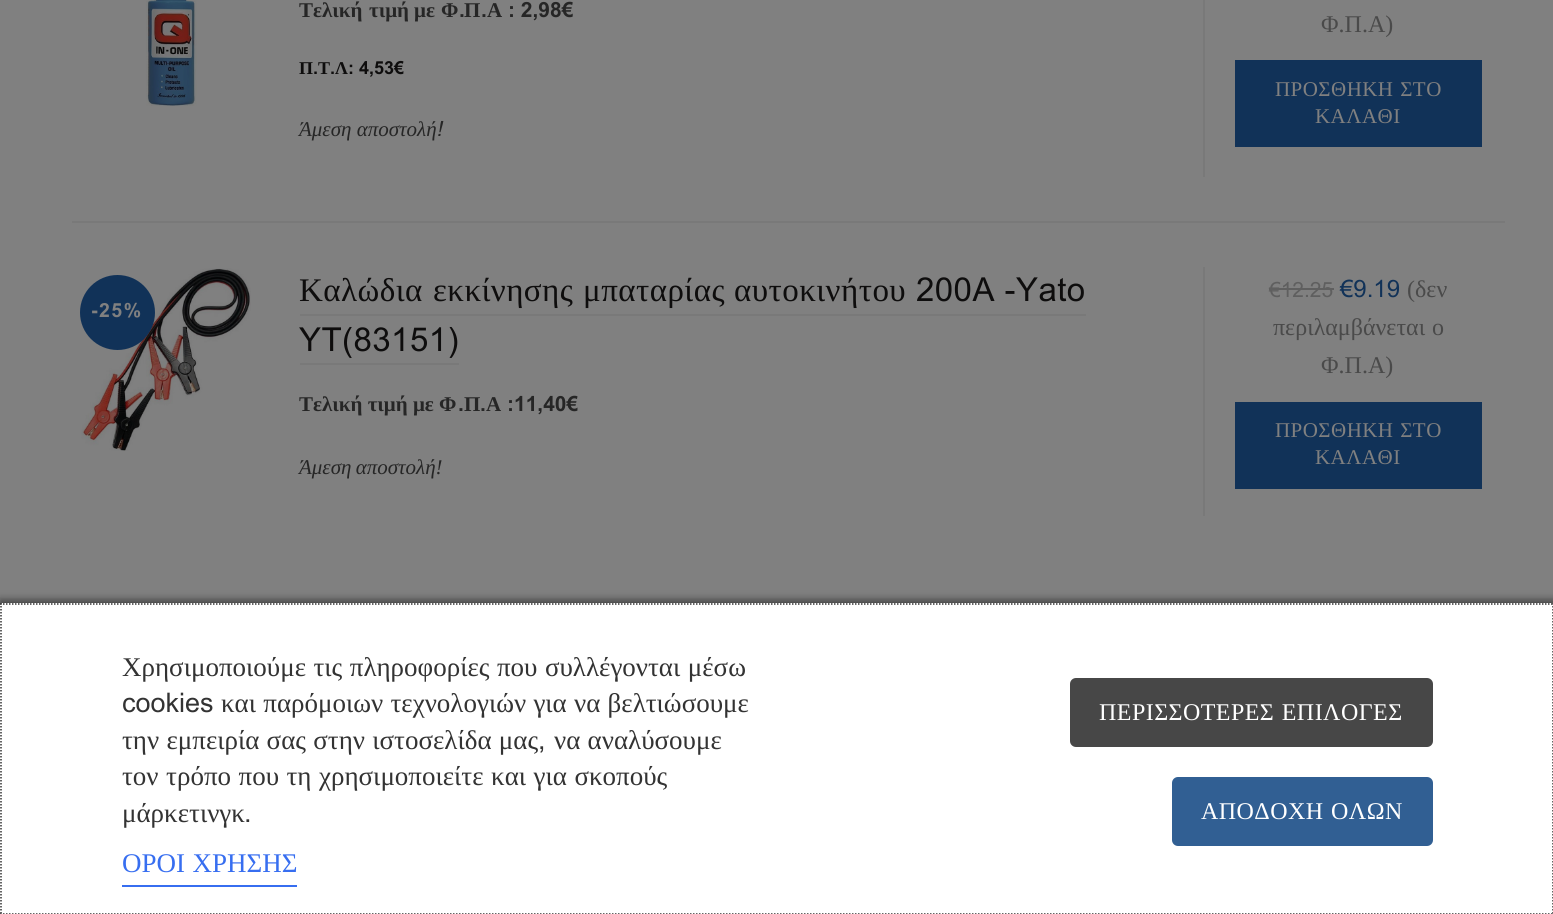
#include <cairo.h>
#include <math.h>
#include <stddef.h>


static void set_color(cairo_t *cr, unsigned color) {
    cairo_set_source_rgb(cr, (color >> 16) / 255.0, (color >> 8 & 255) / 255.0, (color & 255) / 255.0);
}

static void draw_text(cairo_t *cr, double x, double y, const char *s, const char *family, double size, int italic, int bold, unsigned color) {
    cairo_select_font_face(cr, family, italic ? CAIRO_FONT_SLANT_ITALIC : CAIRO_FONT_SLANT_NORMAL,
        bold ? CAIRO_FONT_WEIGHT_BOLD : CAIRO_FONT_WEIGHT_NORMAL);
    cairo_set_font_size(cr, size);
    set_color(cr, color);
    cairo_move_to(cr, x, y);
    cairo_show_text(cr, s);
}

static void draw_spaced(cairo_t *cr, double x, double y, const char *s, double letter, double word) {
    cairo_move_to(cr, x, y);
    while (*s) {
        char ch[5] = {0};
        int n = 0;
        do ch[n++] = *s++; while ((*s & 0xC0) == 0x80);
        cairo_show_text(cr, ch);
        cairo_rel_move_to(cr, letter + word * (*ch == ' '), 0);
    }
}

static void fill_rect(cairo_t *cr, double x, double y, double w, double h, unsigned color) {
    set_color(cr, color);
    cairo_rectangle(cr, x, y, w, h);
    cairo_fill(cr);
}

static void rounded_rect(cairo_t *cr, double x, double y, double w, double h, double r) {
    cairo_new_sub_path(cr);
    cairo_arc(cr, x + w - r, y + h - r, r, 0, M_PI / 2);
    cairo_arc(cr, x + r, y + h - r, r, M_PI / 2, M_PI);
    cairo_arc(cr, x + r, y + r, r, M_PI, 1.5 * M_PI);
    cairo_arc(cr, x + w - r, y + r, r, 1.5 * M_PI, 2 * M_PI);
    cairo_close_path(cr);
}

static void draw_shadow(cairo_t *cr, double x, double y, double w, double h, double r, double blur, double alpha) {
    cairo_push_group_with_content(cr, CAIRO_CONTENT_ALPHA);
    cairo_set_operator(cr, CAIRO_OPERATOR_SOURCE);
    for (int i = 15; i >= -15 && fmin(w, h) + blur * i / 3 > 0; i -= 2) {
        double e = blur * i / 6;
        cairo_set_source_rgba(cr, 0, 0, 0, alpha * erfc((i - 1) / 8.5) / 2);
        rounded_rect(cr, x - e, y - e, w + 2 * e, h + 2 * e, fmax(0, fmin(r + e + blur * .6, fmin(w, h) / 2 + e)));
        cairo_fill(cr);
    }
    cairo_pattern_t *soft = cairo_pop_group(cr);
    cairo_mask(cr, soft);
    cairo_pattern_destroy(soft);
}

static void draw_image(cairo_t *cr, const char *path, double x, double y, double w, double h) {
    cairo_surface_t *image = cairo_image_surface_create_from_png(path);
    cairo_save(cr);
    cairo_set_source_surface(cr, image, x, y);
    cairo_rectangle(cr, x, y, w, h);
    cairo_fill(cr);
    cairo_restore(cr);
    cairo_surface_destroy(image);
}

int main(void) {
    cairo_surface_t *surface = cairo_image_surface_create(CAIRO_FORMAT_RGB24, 1553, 914);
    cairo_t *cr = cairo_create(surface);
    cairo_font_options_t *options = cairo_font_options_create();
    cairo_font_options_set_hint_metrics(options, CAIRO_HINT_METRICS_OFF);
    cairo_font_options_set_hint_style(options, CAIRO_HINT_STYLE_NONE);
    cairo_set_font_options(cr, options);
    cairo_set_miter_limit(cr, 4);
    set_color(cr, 0x808080);
    cairo_paint(cr);
    draw_image(cr, "assets/img1.png", 146, 0, 51, 106);
    fill_rect(cr, 1203, 0, 2, 177, 0x797979);
    draw_text(cr, 299, 17, "Τελική", "Liberation Serif", 21, 0, 1, 0x262626);
    draw_text(cr, 369, 17, "τιμή", "Liberation Serif", 21, 0, 1, 0x262626);
    draw_text(cr, 414, 17, "με", "Liberation Serif", 21, 0, 1, 0x262626);
    draw_text(cr, 441, 17, "Φ", "Liberation Serif", 21, 0, 1, 0x262626);
    draw_text(cr, 459, 17, ".", "Arial", 21, 0, 1, 0x262626);
    draw_text(cr, 464, 17, "Π", "Liberation Serif", 21, 0, 1, 0x262626);
    draw_text(cr, 481, 17, ".", "Arial", 21, 0, 1, 0x262626);
    draw_text(cr, 487, 17, "Α", "Liberation Serif", 21, 0, 1, 0x262626);
    draw_text(cr, 508, 17, ": 2,98€", "Arial", 21, 0, 1, 0x262626);
    draw_text(cr, 299, 74, "Π", "Liberation Serif", 18, 0, 1, 0x0E0D0D);
    draw_text(cr, 313, 74, ".", "Arial", 18, 0, 1, 0x0E0D0D);
    draw_text(cr, 318, 74, "Τ", "Liberation Serif", 18, 0, 1, 0x0E0D0D);
    draw_text(cr, 330, 74, ".", "Arial", 18, 0, 1, 0x0E0D0D);
    draw_text(cr, 335, 74, "Λ", "Liberation Serif", 18, 0, 1, 0x0E0D0D);
    draw_text(cr, 348, 74, ": 4,53€", "Arial", 18, 0, 1, 0x0E0D0D);
    draw_text(cr, 299, 136, "Άμεση αποστολή", "Liberation Serif", 21, 1, 0, 0x262626);
    draw_text(cr, 437, 136, "!", "Arial", 21, 1, 0, 0x262626);
    draw_text(cr, 1321, 32, "Φ.Π.Α)", "Liberation Serif", 24, 0, 0, 0x4A4A4A);
    fill_rect(cr, 1235, 60, 247, 87, 0x113258);
    cairo_set_font_size(cr, 21);
    set_color(cr, 0x808080);
    draw_spaced(cr, 1275, 96, "ΠΡΟΣΘΗΚΗ ΣΤΟ", 0.45, 1);
    draw_spaced(cr, 1315, 123, "ΚΑΛΑΘΙ", 0.45, 0);
    fill_rect(cr, 72, 221, 1433, 2, 0x797979);
    draw_image(cr, "assets/img2.png", 81, 268, 170, 183);
    set_color(cr, 0x113258);
    cairo_arc(cr, 117.5, 312.5, 37.5, 0, 2 * M_PI);
    cairo_fill(cr);
    cairo_select_font_face(cr, "Arial", CAIRO_FONT_SLANT_NORMAL, CAIRO_FONT_WEIGHT_BOLD);
    cairo_set_font_size(cr, 19.5);
    set_color(cr, 0x808080);
    draw_spaced(cr, 91, 317, "-25%", 1.5, 0);
    fill_rect(cr, 1203, 267, 2, 249, 0x797979);
    cairo_select_font_face(cr, "Liberation Serif", CAIRO_FONT_SLANT_NORMAL, CAIRO_FONT_WEIGHT_NORMAL);
    cairo_set_font_size(cr, 33);
    set_color(cr, 0x0E0D0D);
    draw_spaced(cr, 299, 301, "Καλώδια", 0.45, 0);
    draw_spaced(cr, 433, 301, "εκκίνησης", 0.45, 0);
    draw_spaced(cr, 583, 301, "μπαταρίας", 0.45, 0);
    fill_rect(cr, 300, 314, 786, 2, 0x797979);
    set_color(cr, 0x0E0D0D);
    draw_spaced(cr, 734, 301, "αυτοκινήτου", 0.45, 0);
    cairo_select_font_face(cr, "Arial", CAIRO_FONT_SLANT_NORMAL, CAIRO_FONT_WEIGHT_NORMAL);
    draw_spaced(cr, 916, 301, "200A -Yato", 0.45, 0);
    draw_spaced(cr, 299, 351, "YT(83151)", 0.45, 0);
    fill_rect(cr, 300, 363, 159, 2, 0x797979);
    draw_text(cr, 299, 411, "Τελική τιμή με Φ", "Liberation Serif", 21, 0, 1, 0x262626);
    draw_text(cr, 458, 411, ".", "Arial", 21, 0, 1, 0x262626);
    draw_text(cr, 464, 411, "Π", "Liberation Serif", 21, 0, 1, 0x262626);
    draw_text(cr, 480, 411, ".", "Arial", 21, 0, 1, 0x262626);
    draw_text(cr, 486, 411, "Α", "Liberation Serif", 21, 0, 1, 0x262626);
    draw_text(cr, 507, 411, ":11,40€", "Arial", 21, 0, 1, 0x262626);
    cairo_select_font_face(cr, "Liberation Serif", CAIRO_FONT_SLANT_ITALIC, CAIRO_FONT_WEIGHT_NORMAL);
    draw_spaced(cr, 299, 474, "Άμεση αποστολή!", 0, -1);
    draw_text(cr, 1269, 297, "€12.25", "Arial", 21, 0, 0, 0x5F5F5F);
    fill_rect(cr, 1269, 288, 65, 2, 0x5F5F5F);
    draw_text(cr, 1340, 297, "€9.19", "Arial", 24, 0, 0, 0x113258);
    draw_text(cr, 1407, 297, "(δεν", "Liberation Serif", 24, 0, 0, 0x4A4A4A);
    draw_spaced(cr, 1273, 335, "περιλαμβάνεται ο", 0, 1);
    draw_text(cr, 1321, 373, "Φ.Π.Α)", "Liberation Serif", 24, 0, 0, 0x4A4A4A);
    fill_rect(cr, 1235, 402, 247, 87, 0x113258);
    cairo_set_font_size(cr, 21);
    set_color(cr, 0x808080);
    draw_spaced(cr, 1275, 437, "ΠΡΟΣΘΗΚΗ ΣΤΟ", 0.45, 1);
    draw_spaced(cr, 1315, 464, "ΚΑΛΑΘΙ", 0.45, 0);
    set_color(cr, 0x000000);
    draw_shadow(cr, 0, 600, 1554, 312, 0, 4, 0.5);
    fill_rect(cr, 0, 603, 1553, 311, 0xFFFFFF);
    cairo_new_path(cr);
    cairo_move_to(cr, 0, 604);
    cairo_line_to(cr, 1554, 604);
    set_color(cr, 0x333333);
    cairo_set_line_width(cr, 1.5);
    cairo_set_dash(cr, (double[]){1.5, 1.5}, 2, 0);
    cairo_stroke(cr);
    cairo_new_path(cr);
    cairo_move_to(cr, 1553, 603);
    cairo_line_to(cr, 1553, 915);
    cairo_stroke(cr);
    cairo_new_path(cr);
    cairo_move_to(cr, 0, 914);
    cairo_line_to(cr, 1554, 914);
    cairo_stroke(cr);
    cairo_new_path(cr);
    cairo_move_to(cr, 1, 603);
    cairo_line_to(cr, 1, 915);
    cairo_stroke(cr);
    cairo_set_font_size(cr, 27);
    draw_spaced(cr, 122, 676, "Χρησιμοποιούμε τις πληροφορίες που συλλέγονται μέσω", 0, 0.75);
    draw_text(cr, 122, 712, "cookies", "Arial", 27, 0, 0, 0x333333);
    cairo_select_font_face(cr, "Liberation Serif", CAIRO_FONT_SLANT_NORMAL, CAIRO_FONT_WEIGHT_NORMAL);
    draw_spaced(cr, 221, 712, "και παρόμοιων τεχνολογιών για να βελτιώσουμε", 0, 0.5);
    draw_spaced(cr, 122, 749, "την εμπειρία σας στην ιστοσελίδα μας", 0, 0.5);
    draw_text(cr, 538, 749, ",", "Arial", 27, 0, 0, 0x333333);
    cairo_select_font_face(cr, "Liberation Serif", CAIRO_FONT_SLANT_NORMAL, CAIRO_FONT_WEIGHT_NORMAL);
    draw_spaced(cr, 554, 749, "να αναλύσουμε", 0, 0.5);
    draw_spaced(cr, 122, 785, "τον τρόπο που τη χρησιμοποιείτε και για σκοπούς", 0, 0.75);
    draw_text(cr, 122, 822, "μάρκετινγκ", "Liberation Serif", 27, 0, 0, 0x333333);
    draw_text(cr, 244, 822, ".", "Arial", 27, 0, 0, 0x333333);
    cairo_select_font_face(cr, "Liberation Serif", CAIRO_FONT_SLANT_NORMAL, CAIRO_FONT_WEIGHT_NORMAL);
    set_color(cr, 0x376EF0);
    draw_spaced(cr, 122, 872, "ΟΡΟΙ ΧΡΗΣΗΣ", 0, 0.75);
    fill_rect(cr, 122, 885, 175, 2, 0x376EF0);
    set_color(cr, 0x474747);
    rounded_rect(cr, 1070, 678, 363, 69, 6);
    cairo_fill(cr);
    cairo_set_font_size(cr, 24);
    set_color(cr, 0xFFFFFF);
    draw_spaced(cr, 1099, 720, "ΠΕΡΙΣΣΟΤΕΡΕΣ ΕΠΙΛΟΓΕΣ", 0.45, 1);
    set_color(cr, 0x315F93);
    rounded_rect(cr, 1172, 777, 261, 69, 6);
    cairo_fill(cr);
    set_color(cr, 0xFFFFFF);
    draw_spaced(cr, 1201, 819, "ΑΠΟΔΟΧΗ ΟΛΩΝ", 0.45, 1);
    cairo_surface_write_to_png(surface, "output.png");
    cairo_font_options_destroy(options);
    cairo_destroy(cr);
    cairo_surface_destroy(surface);
    return 0;
}
